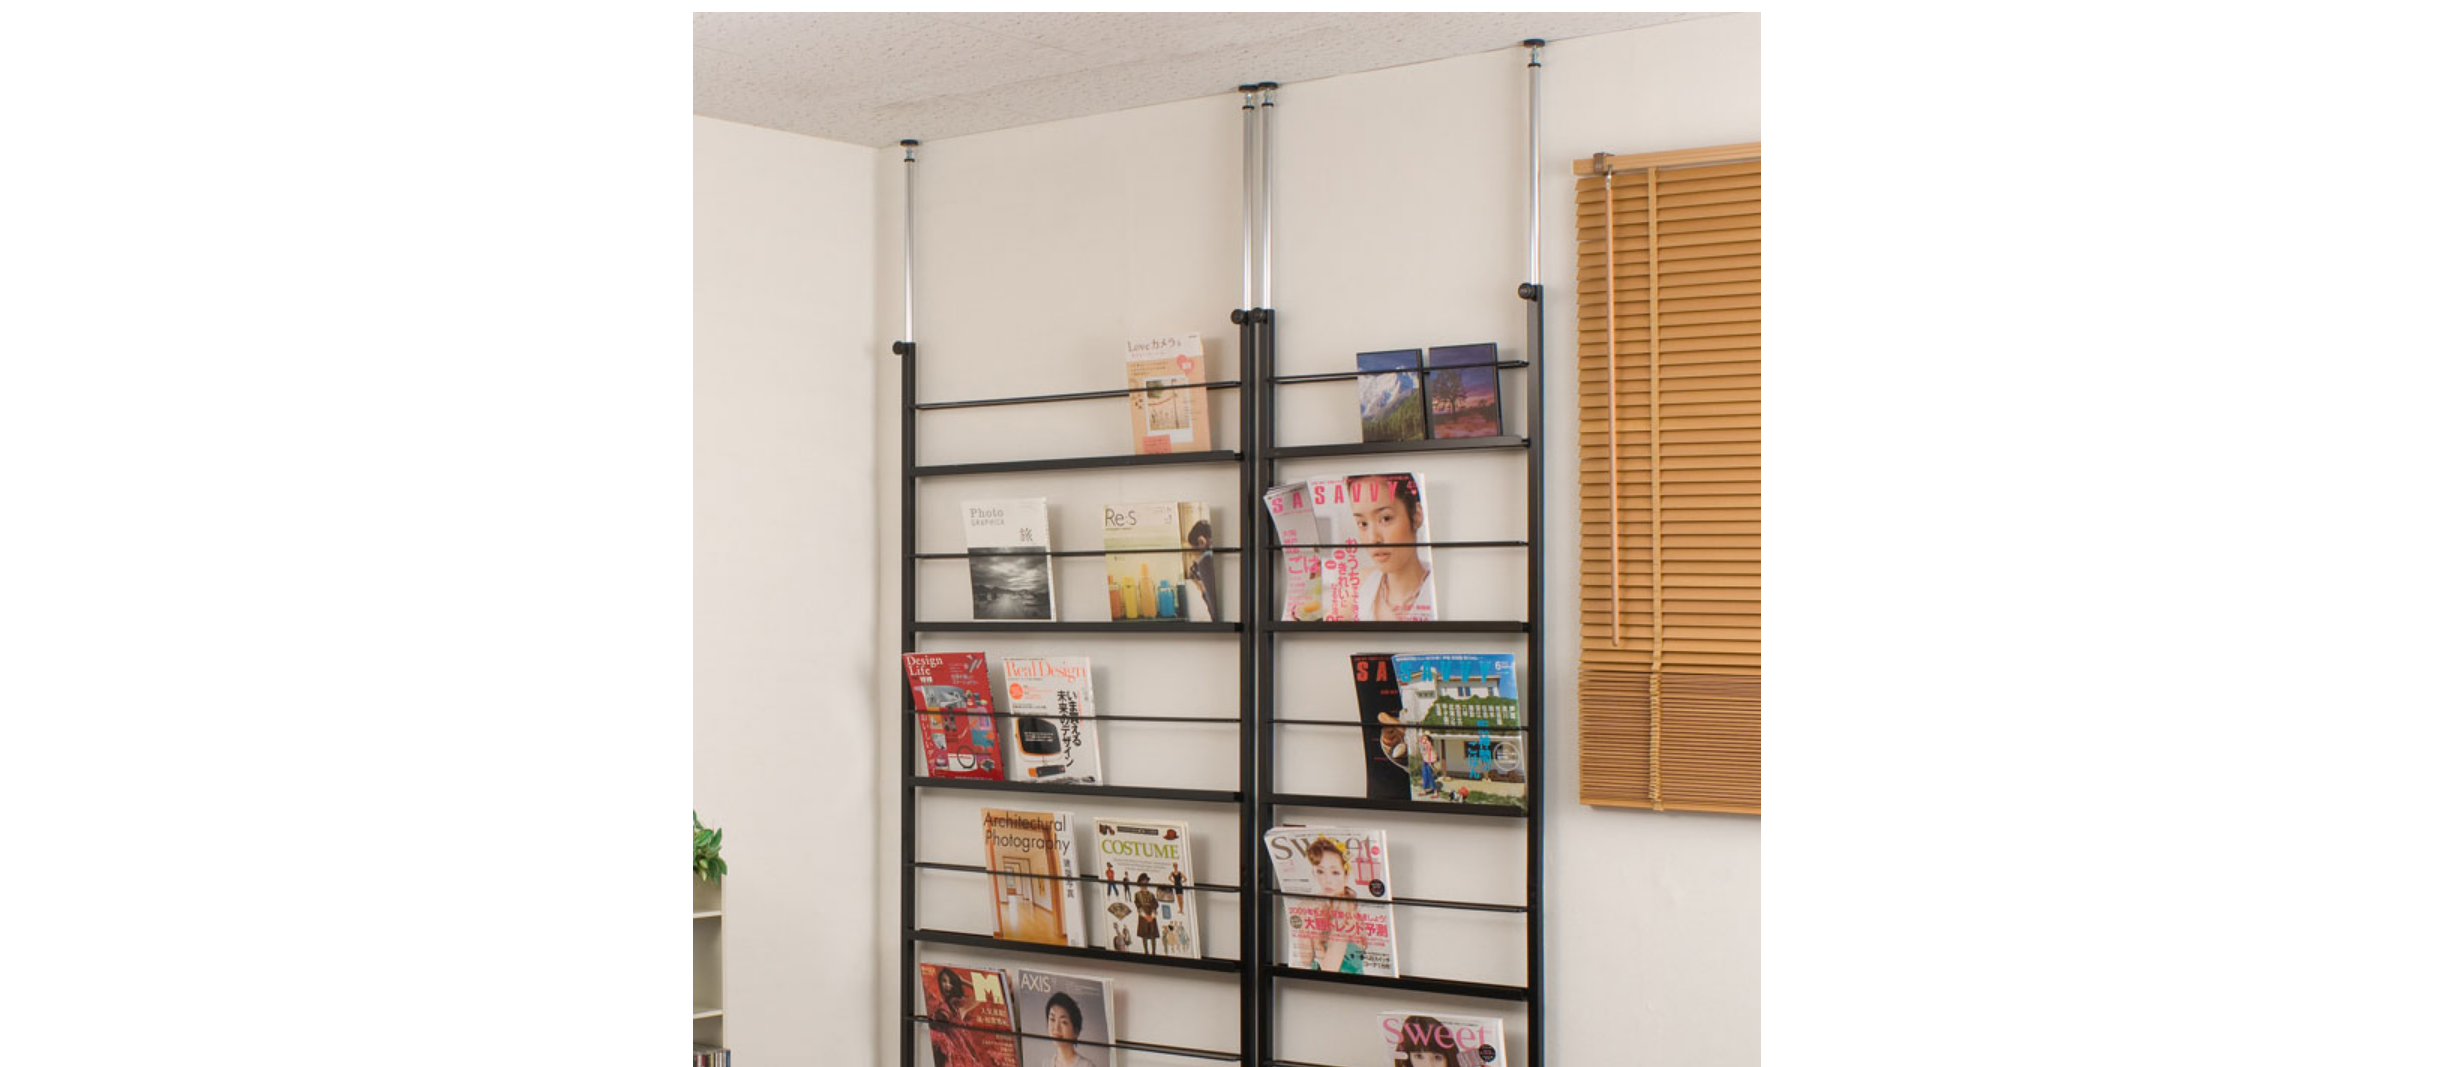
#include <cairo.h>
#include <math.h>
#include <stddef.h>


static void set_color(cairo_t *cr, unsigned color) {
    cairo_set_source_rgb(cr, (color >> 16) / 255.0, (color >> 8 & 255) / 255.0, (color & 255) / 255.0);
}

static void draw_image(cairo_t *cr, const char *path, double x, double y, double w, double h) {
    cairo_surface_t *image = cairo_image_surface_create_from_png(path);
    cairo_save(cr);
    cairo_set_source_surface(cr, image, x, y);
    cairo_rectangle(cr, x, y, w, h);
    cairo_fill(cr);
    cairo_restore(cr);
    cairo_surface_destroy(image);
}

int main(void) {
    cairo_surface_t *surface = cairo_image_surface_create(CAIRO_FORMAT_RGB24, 2453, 1067);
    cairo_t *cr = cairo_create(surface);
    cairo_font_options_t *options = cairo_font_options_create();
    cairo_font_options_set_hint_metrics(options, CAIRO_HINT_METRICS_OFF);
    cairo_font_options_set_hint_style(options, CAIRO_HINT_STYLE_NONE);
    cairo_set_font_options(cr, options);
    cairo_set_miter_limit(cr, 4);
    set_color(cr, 0xFFFFFF);
    cairo_paint(cr);
    draw_image(cr, "assets/img1.png", 693, 12, 1068, 1055);
    cairo_surface_write_to_png(surface, "output.png");
    cairo_font_options_destroy(options);
    cairo_destroy(cr);
    cairo_surface_destroy(surface);
    return 0;
}
